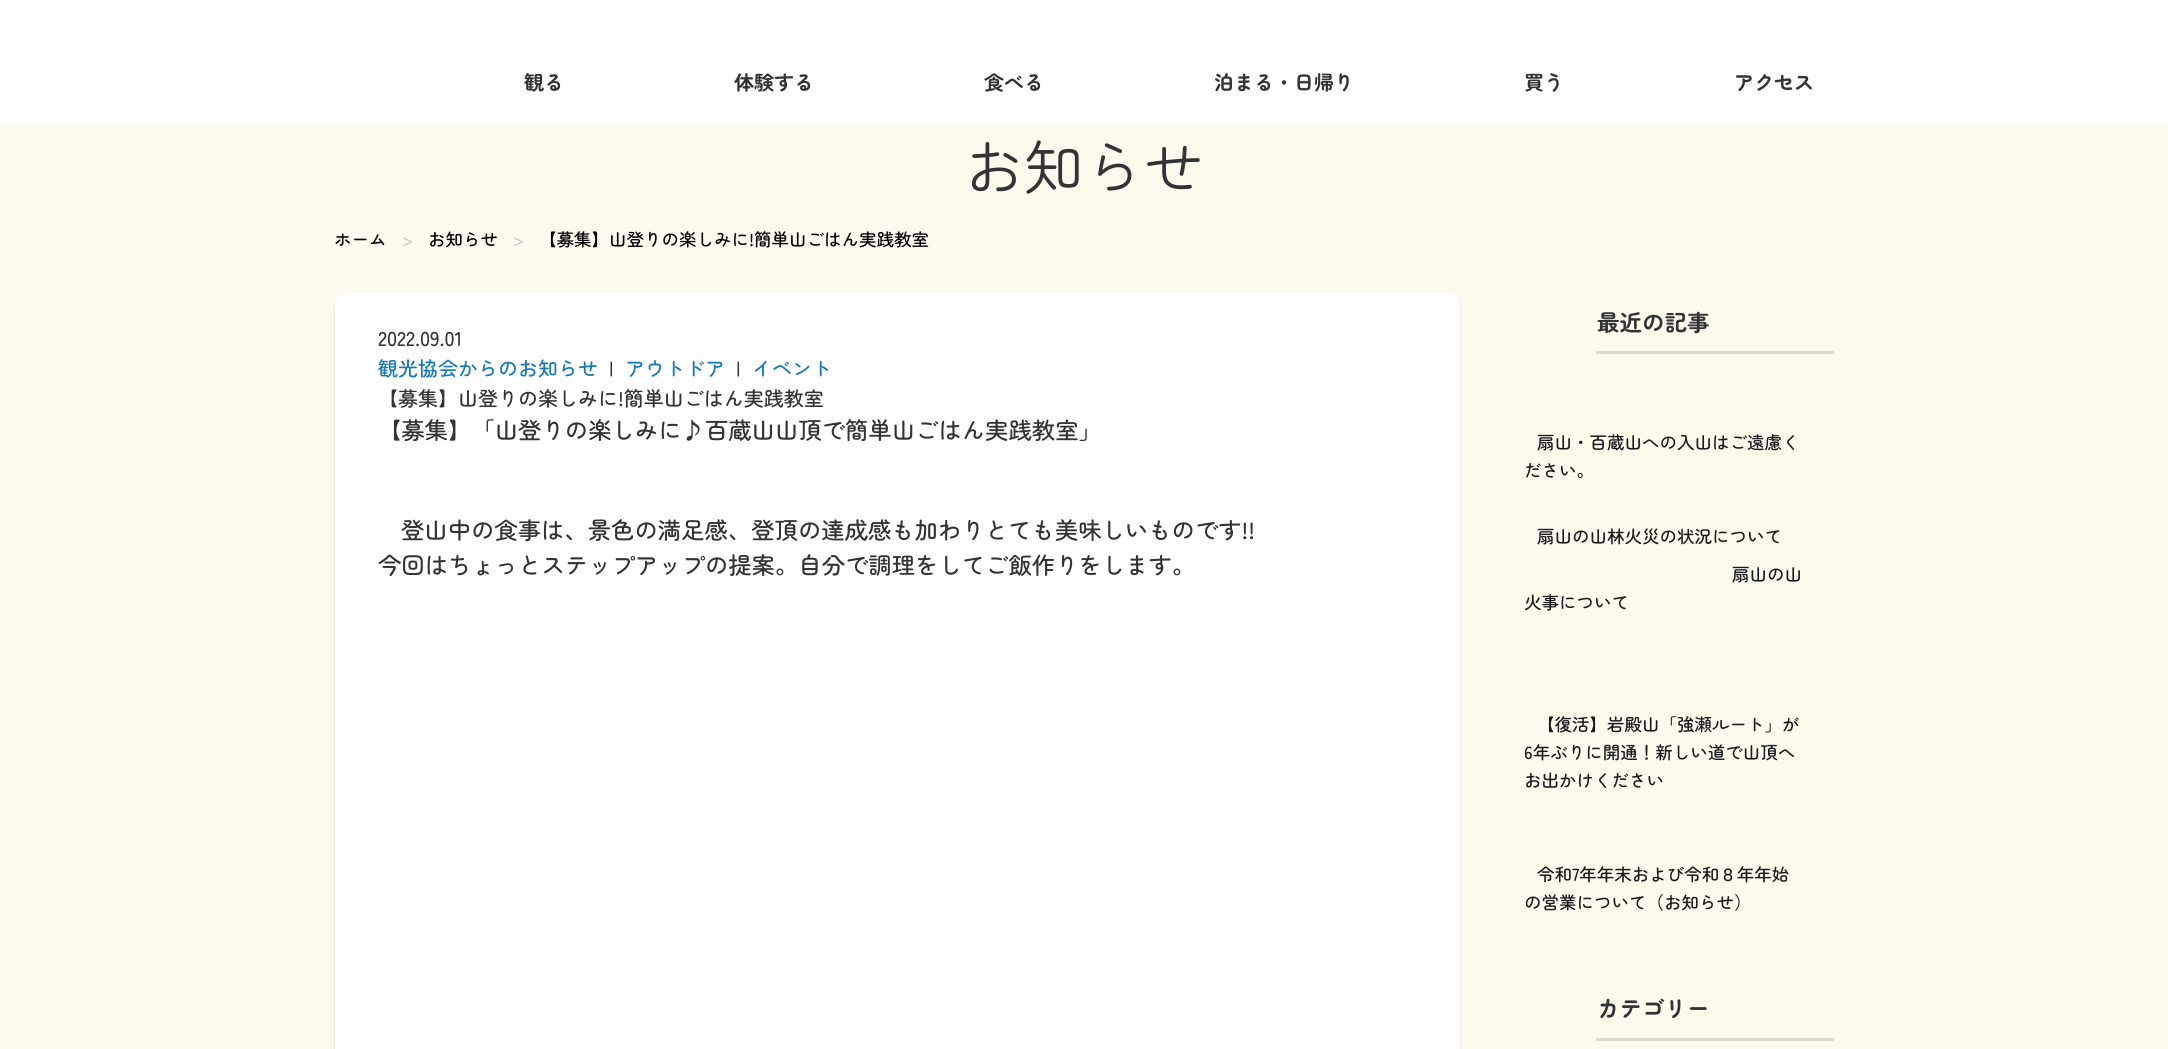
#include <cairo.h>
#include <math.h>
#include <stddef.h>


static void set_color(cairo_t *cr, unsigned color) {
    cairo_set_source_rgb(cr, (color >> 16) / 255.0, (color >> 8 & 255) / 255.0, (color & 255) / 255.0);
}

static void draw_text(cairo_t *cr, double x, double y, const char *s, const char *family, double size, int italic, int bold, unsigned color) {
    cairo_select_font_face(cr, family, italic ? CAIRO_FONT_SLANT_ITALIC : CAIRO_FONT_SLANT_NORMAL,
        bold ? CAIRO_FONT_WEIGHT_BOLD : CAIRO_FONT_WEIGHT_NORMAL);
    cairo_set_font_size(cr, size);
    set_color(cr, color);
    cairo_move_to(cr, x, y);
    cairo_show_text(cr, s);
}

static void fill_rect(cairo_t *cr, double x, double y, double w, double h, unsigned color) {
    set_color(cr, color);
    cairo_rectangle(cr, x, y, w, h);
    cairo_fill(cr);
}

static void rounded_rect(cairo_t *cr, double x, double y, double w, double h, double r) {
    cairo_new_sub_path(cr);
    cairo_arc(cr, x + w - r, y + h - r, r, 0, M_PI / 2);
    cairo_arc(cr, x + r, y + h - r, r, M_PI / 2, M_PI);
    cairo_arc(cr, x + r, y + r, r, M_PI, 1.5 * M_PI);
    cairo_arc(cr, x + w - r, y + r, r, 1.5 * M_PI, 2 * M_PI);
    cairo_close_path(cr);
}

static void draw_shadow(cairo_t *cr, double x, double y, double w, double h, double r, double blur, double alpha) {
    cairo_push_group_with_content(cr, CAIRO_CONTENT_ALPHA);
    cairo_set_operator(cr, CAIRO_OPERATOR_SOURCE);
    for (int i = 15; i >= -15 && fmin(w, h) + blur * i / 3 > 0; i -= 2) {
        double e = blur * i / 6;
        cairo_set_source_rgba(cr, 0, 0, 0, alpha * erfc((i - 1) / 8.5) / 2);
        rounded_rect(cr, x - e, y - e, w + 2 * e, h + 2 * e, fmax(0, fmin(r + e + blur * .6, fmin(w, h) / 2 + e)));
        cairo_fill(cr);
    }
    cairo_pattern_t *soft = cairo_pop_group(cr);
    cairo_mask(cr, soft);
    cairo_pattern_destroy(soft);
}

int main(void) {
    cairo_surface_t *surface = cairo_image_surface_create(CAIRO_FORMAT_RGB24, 2168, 1049);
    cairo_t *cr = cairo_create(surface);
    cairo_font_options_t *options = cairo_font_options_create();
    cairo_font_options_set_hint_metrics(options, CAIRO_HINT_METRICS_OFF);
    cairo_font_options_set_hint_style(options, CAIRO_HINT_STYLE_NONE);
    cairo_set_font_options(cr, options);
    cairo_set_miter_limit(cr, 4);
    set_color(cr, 0xFCF9ED);
    cairo_paint(cr);
    fill_rect(cr, 0, 0, 2168, 123, 0xFFFFFF);
    draw_text(cr, 524, 90, "観る", "Zen Maru Gothic", 20, 0, 1, 0x333333);
    draw_text(cr, 734, 90, "体験する", "Zen Maru Gothic", 20, 0, 1, 0x333333);
    draw_text(cr, 984, 90, "食べる", "Zen Maru Gothic", 20, 0, 1, 0x333333);
    draw_text(cr, 1214, 90, "泊まる・日帰り", "Zen Maru Gothic", 20, 0, 1, 0x333333);
    draw_text(cr, 1524, 90, "買う", "Zen Maru Gothic", 20, 0, 1, 0x333333);
    draw_text(cr, 1734, 90, "アクセス", "Zen Maru Gothic", 20, 0, 1, 0x333333);
    draw_text(cr, 964, 190, "お知らせ", "Zen Maru Gothic", 60, 0, 0, 0x333333);
    draw_text(cr, 334, 246, "ホーム", "Zen Maru Gothic Medium", 17.5, 0, 0, 0x050001);
    draw_text(cr, 402, 246, ">", "Zen Maru Gothic Medium", 17.5, 0, 0, 0xCACACA);
    draw_text(cr, 428, 246, "お知らせ", "Zen Maru Gothic Medium", 17.5, 0, 0, 0x050001);
    draw_text(cr, 513, 246, ">", "Zen Maru Gothic Medium", 17.5, 0, 0, 0xCACACA);
    draw_text(cr, 539, 246, "【募集】山登りの楽しみに!簡単山ごはん実践教室", "Zen Maru Gothic Medium", 17.5, 0, 0, 0x050001);
    set_color(cr, 0x000000);
    draw_shadow(cr, 335, 294, 1125, 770, 13, 0.5, 0.23);
    set_color(cr, 0xFFFFFF);
    rounded_rect(cr, 335, 293, 1125, 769, 13);
    cairo_fill(cr);
    draw_text(cr, 378, 346, "2022.09.01", "Zen Maru Gothic Medium", 20, 0, 0, 0x333333);
    draw_text(cr, 378, 376, "観光協会からのお知らせ", "Zen Maru Gothic Medium", 20, 0, 0, 0x1779BA);
    draw_text(cr, 609, 376, "|", "Zen Maru Gothic Medium", 20, 0, 0, 0x333333);
    draw_text(cr, 625, 376, "アウトドア", "Zen Maru Gothic Medium", 20, 0, 0, 0x1779BA);
    draw_text(cr, 736, 376, "|", "Zen Maru Gothic Medium", 20, 0, 0, 0x333333);
    draw_text(cr, 752, 376, "イベント", "Zen Maru Gothic Medium", 20, 0, 0, 0x1779BA);
    draw_text(cr, 378, 406, "【募集】山登りの楽しみに!簡単山ごはん実践教室", "Zen Maru Gothic Medium", 20, 0, 0, 0x333333);
    draw_text(cr, 378, 439, "【募集】「山登りの楽しみに♪百蔵山山頂で簡単山ごはん実践教室」", "Zen Maru Gothic Medium", 23.35, 0, 0, 0x333333);
    draw_text(cr, 401, 539, "登山中の食事は、景色の満足感、登頂の達成感も加わりとても美味しいものです!!", "Zen Maru Gothic Medium", 23.35, 0, 0, 0x333333);
    draw_text(cr, 378, 574, "今回はちょっとステップアップの提案。自分で調理をしてご飯作りをします。", "Zen Maru Gothic Medium", 23.35, 0, 0, 0x333333);
    fill_rect(cr, 1596, 351, 238, 3, 0xDED9CB);
    draw_text(cr, 1597, 331, "最近の記事", "Zen Maru Gothic", 22.5, 0, 1, 0x333333);
    draw_text(cr, 1537, 449, "扇山・百蔵山への入山はご遠慮く", "Zen Maru Gothic Medium", 17.5, 0, 0, 0x191919);
    draw_text(cr, 1524, 477, "ださい。", "Zen Maru Gothic Medium", 17.5, 0, 0, 0x191919);
    draw_text(cr, 1537, 543, "扇山の山林火災の状況について", "Zen Maru Gothic Medium", 17.5, 0, 0, 0x191919);
    draw_text(cr, 1732, 581, "扇山の山", "Zen Maru Gothic Medium", 17.5, 0, 0, 0x191919);
    draw_text(cr, 1524, 609, "火事について", "Zen Maru Gothic Medium", 17.5, 0, 0, 0x191919);
    draw_text(cr, 1537, 731, "【復活】岩殿山「強瀬ルート」が", "Zen Maru Gothic Medium", 17.5, 0, 0, 0x191919);
    draw_text(cr, 1524, 759, "6年ぶりに開通！新しい道で山頂へ", "Zen Maru Gothic Medium", 17.5, 0, 0, 0x191919);
    draw_text(cr, 1524, 787, "お出かけください", "Zen Maru Gothic Medium", 17.5, 0, 0, 0x191919);
    draw_text(cr, 1537, 881, "令和7年年末および令和８年年始", "Zen Maru Gothic Medium", 17.5, 0, 0, 0x191919);
    draw_text(cr, 1524, 909, "の営業について（お知らせ）", "Zen Maru Gothic Medium", 17.5, 0, 0, 0x191919);
    fill_rect(cr, 1596, 1038, 238, 3, 0xDED9CB);
    draw_text(cr, 1597, 1017, "カテゴリー", "Zen Maru Gothic", 22.5, 0, 1, 0x333333);
    cairo_surface_write_to_png(surface, "output.png");
    cairo_font_options_destroy(options);
    cairo_destroy(cr);
    cairo_surface_destroy(surface);
    return 0;
}
